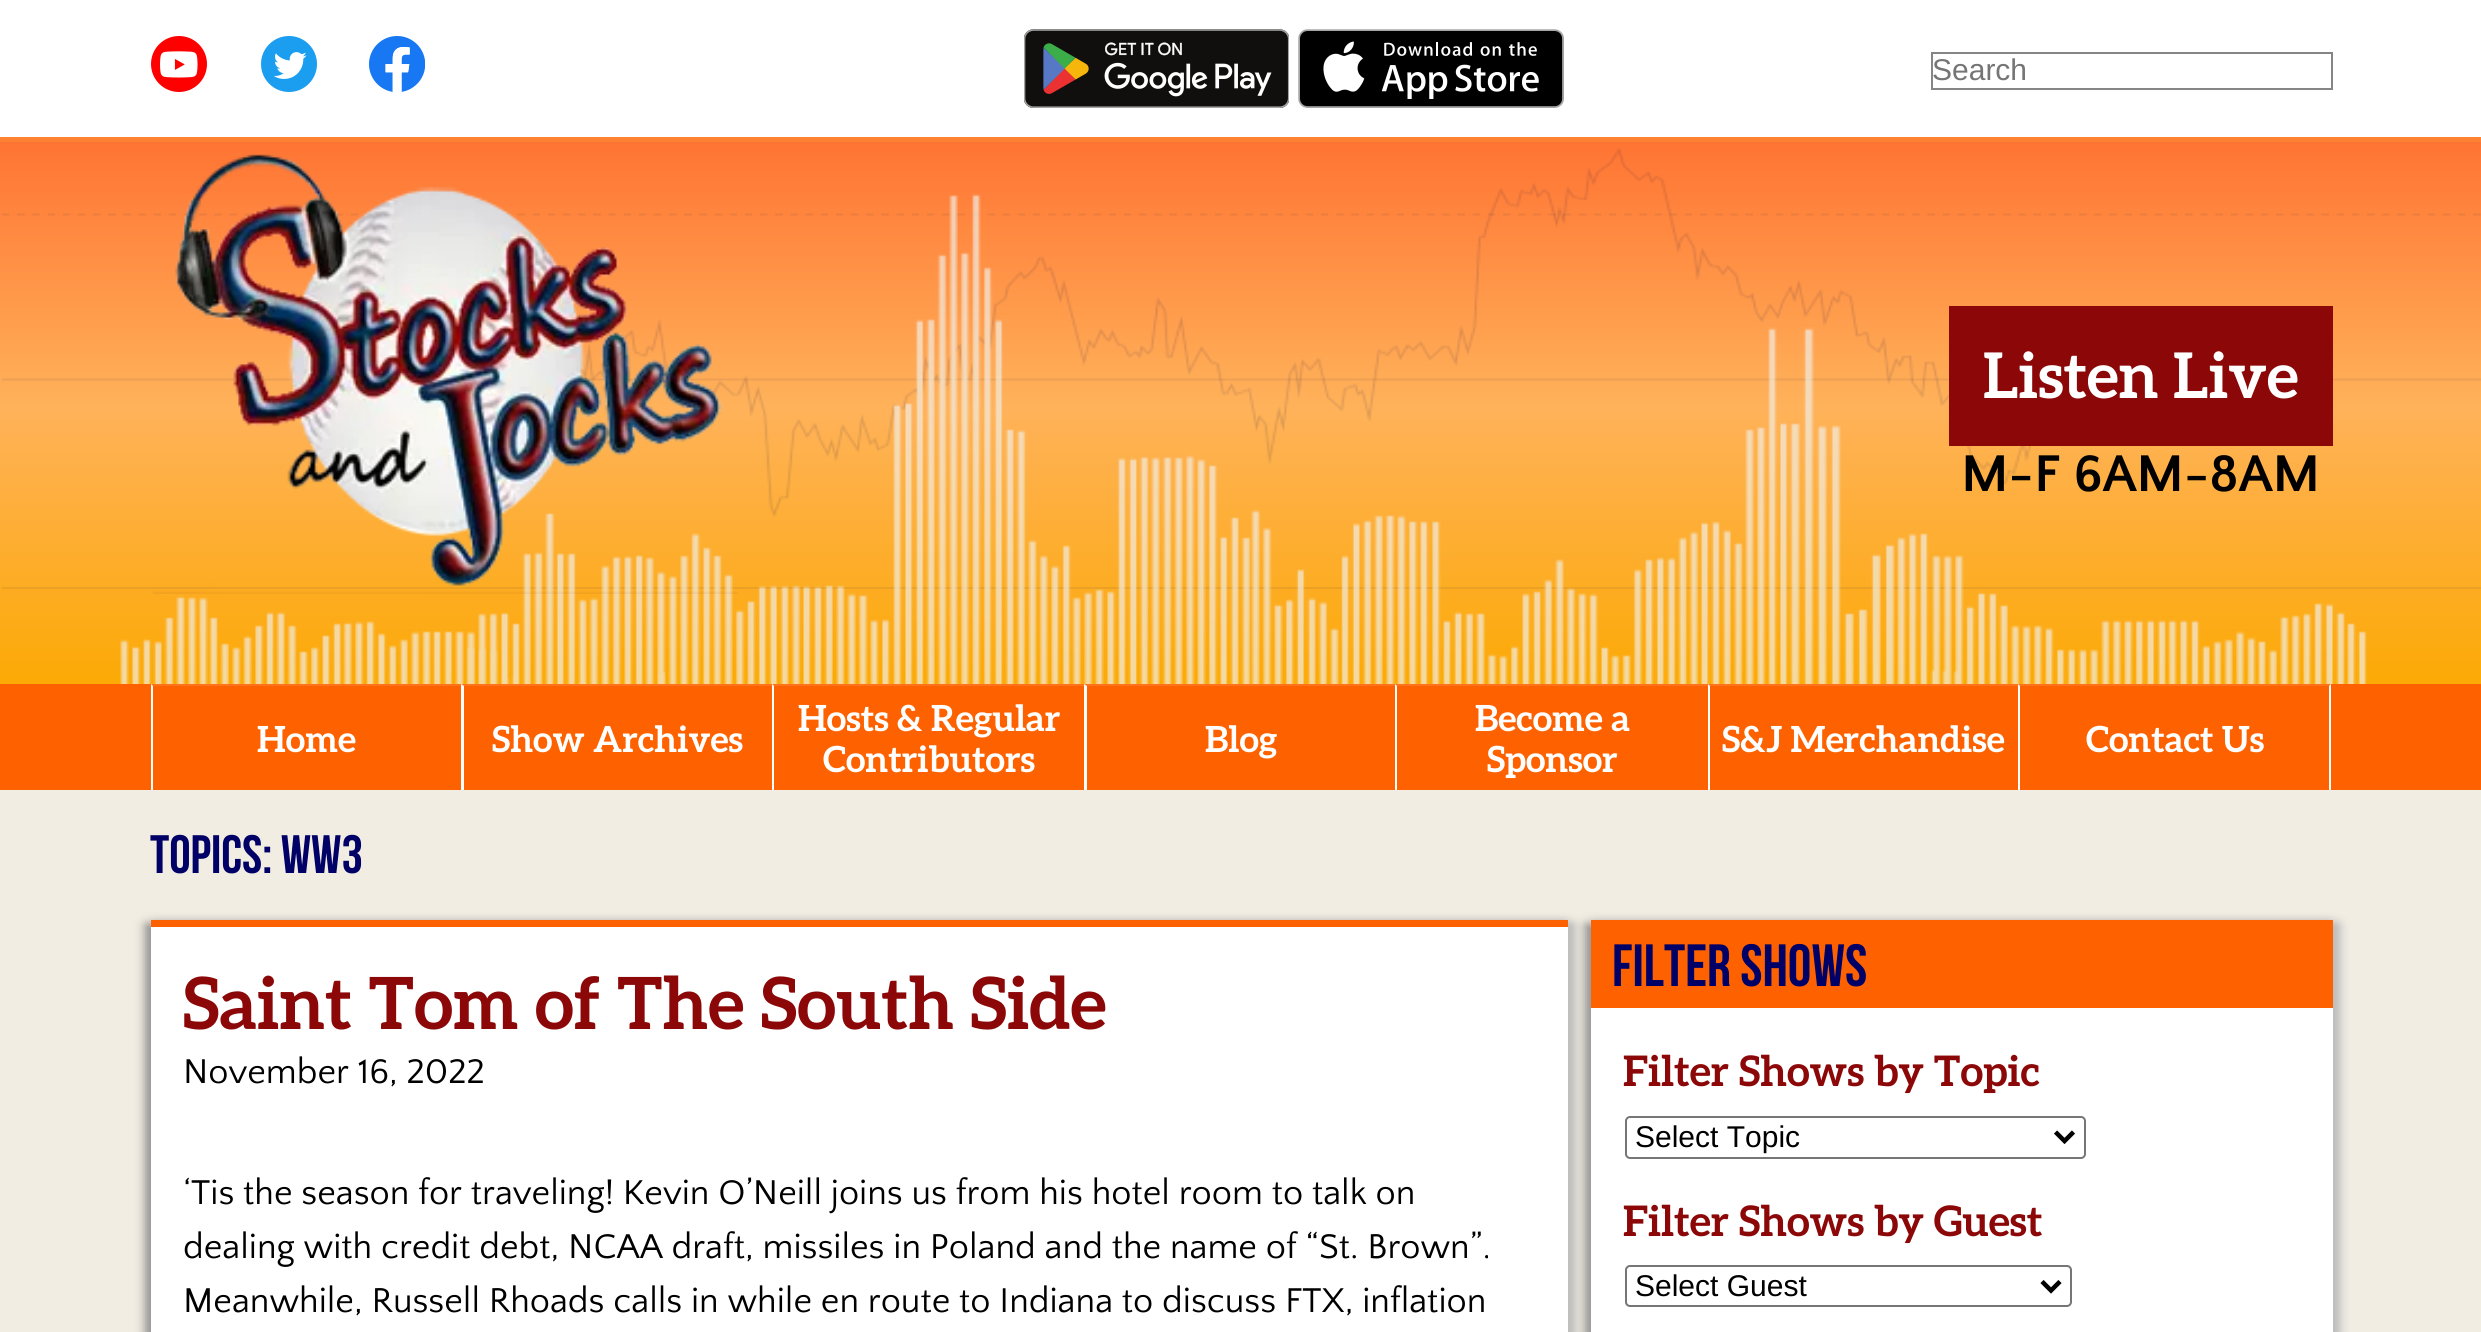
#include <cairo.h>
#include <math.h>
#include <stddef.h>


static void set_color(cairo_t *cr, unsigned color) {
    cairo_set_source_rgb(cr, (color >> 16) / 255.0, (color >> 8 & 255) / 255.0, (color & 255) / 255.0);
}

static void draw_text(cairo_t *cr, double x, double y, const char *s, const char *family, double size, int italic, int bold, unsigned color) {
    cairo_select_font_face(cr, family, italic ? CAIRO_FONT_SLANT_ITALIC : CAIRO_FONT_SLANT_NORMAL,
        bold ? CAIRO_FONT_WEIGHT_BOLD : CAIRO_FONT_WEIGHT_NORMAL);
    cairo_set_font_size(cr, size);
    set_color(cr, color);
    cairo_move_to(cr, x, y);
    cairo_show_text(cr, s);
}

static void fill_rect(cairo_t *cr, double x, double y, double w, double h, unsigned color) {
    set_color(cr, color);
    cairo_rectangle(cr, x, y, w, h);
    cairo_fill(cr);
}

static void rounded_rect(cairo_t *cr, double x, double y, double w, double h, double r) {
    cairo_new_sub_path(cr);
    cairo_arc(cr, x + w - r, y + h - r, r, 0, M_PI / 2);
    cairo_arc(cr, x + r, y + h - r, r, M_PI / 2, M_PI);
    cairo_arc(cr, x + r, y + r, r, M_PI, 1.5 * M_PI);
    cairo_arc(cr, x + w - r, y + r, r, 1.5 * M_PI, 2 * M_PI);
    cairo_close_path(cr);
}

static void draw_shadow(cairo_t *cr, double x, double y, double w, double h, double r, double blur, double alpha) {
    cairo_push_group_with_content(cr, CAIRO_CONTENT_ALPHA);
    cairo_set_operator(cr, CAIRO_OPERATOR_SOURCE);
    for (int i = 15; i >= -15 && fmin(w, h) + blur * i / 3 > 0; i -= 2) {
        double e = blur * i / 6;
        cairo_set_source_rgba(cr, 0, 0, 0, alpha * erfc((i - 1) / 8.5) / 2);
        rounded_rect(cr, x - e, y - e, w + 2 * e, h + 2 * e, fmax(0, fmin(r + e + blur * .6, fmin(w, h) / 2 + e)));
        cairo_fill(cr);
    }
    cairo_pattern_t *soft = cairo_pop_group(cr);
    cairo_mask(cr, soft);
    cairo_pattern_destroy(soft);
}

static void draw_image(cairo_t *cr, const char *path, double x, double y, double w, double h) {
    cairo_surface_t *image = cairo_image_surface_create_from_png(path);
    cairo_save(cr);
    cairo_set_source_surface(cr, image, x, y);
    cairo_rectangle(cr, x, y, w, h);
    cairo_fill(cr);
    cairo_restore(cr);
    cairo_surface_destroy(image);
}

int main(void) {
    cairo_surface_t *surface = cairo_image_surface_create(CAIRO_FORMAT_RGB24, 2481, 1332);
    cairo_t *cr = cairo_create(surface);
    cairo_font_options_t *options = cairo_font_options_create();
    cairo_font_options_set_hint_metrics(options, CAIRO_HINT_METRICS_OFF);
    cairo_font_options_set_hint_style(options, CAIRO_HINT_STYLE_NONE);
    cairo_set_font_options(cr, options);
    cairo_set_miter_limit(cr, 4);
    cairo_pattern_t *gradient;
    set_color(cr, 0xF2EDE2);
    cairo_paint(cr);
    fill_rect(cr, 0, 0, 2481, 137, 0xFFFFFF);
    draw_image(cr, "assets/img1.png", 151, 36, 56, 56);
    draw_image(cr, "assets/img2.png", 261, 36, 56, 56);
    draw_image(cr, "assets/img3.png", 369, 36, 56, 56);
    draw_image(cr, "assets/img4.png", 1024, 29, 265, 79);
    draw_image(cr, "assets/img5.png", 1298, 29, 266, 79);
    cairo_rectangle(cr, 1932, 53, 400, 36);
    set_color(cr, 0x858585);
    cairo_stroke(cr);
    draw_text(cr, 1932, 80, "Search", "Liberation Sans", 30, 0, 0, 0x757575);
    gradient = cairo_pattern_create_linear(1242, 142, 1242, 704);
    cairo_pattern_add_color_stop_rgba(gradient, 0, 1, 0.455, 0.2, 1);
    cairo_pattern_add_color_stop_rgba(gradient, 0.47, 1, 0.698, 0.353, 1);
    cairo_pattern_add_color_stop_rgba(gradient, 0.99, 0.988, 0.663, 0, 1);
    cairo_pattern_add_color_stop_rgba(gradient, 1, 0.988, 0.663, 0, 1);
    cairo_set_source(cr, gradient);
    cairo_pattern_destroy(gradient);
    cairo_rectangle(cr, 0, 142, 2481, 542);
    cairo_fill(cr);
    fill_rect(cr, 2, 587, 2479, 2, 0xEAA124);
    cairo_new_path(cr);
    cairo_move_to(cr, 2, 379.5);
    cairo_line_to(cr, 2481.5, 379.5);
    set_color(cr, 0xEBA053);
    cairo_set_line_width(cr, 1.9);
    cairo_stroke(cr);
    cairo_new_path(cr);
    cairo_move_to(cr, 2, 214.5);
    cairo_line_to(cr, 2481.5, 214.5);
    set_color(cr, 0xEB7D3D);
    cairo_set_dash(cr, (double[]){0, 0, 7.58, 7.58}, 4, 0);
    cairo_stroke(cr);
    fill_rect(cr, 0, 137, 2481, 5, 0xFF8233);
    draw_image(cr, "assets/img6.png", 120, 148, 2247, 536);
    draw_image(cr, "assets/img7.png", 151, 154, 587, 440);
    fill_rect(cr, 1949, 306, 384, 140, 0x8C0808);
    draw_text(cr, 1983, 398, "Listen Live", "Aleo", 63, 0, 1, 0xFFFFFF);
    draw_text(cr, 1961, 491, "M-F 6AM-8AM", "Quattrocento Sans", 54, 0, 1, 0x000000);
    fill_rect(cr, 0, 684, 2481, 106, 0xFE6200);
    set_color(cr, 0xFE721A);
    cairo_new_path(cr);
    cairo_move_to(cr, 151, 684);
    cairo_line_to(cr, 461, 684);
    cairo_line_to(cr, 461, 686);
    cairo_line_to(cr, 153, 686);
    cairo_close_path(cr);
    cairo_fill(cr);
    set_color(cr, 0xFFFFFF);
    cairo_new_path(cr);
    cairo_move_to(cr, 151, 790);
    cairo_line_to(cr, 151, 684);
    cairo_line_to(cr, 153, 686);
    cairo_line_to(cr, 153, 790);
    cairo_close_path(cr);
    cairo_fill(cr);
    draw_text(cr, 257, 752, "Home", "Aleo", 36, 0, 1, 0xFFFFFF);
    set_color(cr, 0xFE721A);
    cairo_new_path(cr);
    cairo_move_to(cr, 461, 684);
    cairo_line_to(cr, 772, 684);
    cairo_line_to(cr, 772, 686);
    cairo_line_to(cr, 464, 686);
    cairo_close_path(cr);
    cairo_fill(cr);
    set_color(cr, 0xFFFFFF);
    cairo_new_path(cr);
    cairo_move_to(cr, 461, 790);
    cairo_line_to(cr, 461, 684);
    cairo_line_to(cr, 464, 686);
    cairo_line_to(cr, 464, 790);
    cairo_close_path(cr);
    cairo_fill(cr);
    draw_text(cr, 492, 752, "Show Archives", "Aleo", 36, 0, 1, 0xFFFFFF);
    set_color(cr, 0xFE721A);
    cairo_new_path(cr);
    cairo_move_to(cr, 772, 684);
    cairo_line_to(cr, 1084, 684);
    cairo_line_to(cr, 1084, 686);
    cairo_line_to(cr, 774, 686);
    cairo_close_path(cr);
    cairo_fill(cr);
    set_color(cr, 0xFFFFFF);
    cairo_new_path(cr);
    cairo_move_to(cr, 772, 790);
    cairo_line_to(cr, 772, 684);
    cairo_line_to(cr, 774, 686);
    cairo_line_to(cr, 774, 790);
    cairo_close_path(cr);
    cairo_fill(cr);
    draw_text(cr, 798, 731, "Hosts & Regular", "Aleo", 36, 0, 1, 0xFFFFFF);
    draw_text(cr, 823, 772, "Contributors", "Aleo", 36, 0, 1, 0xFFFFFF);
    set_color(cr, 0xFE721A);
    cairo_new_path(cr);
    cairo_move_to(cr, 1084, 684);
    cairo_line_to(cr, 1395, 684);
    cairo_line_to(cr, 1395, 686);
    cairo_line_to(cr, 1087, 686);
    cairo_close_path(cr);
    cairo_fill(cr);
    set_color(cr, 0xFFFFFF);
    cairo_new_path(cr);
    cairo_move_to(cr, 1084, 790);
    cairo_line_to(cr, 1084, 684);
    cairo_line_to(cr, 1087, 686);
    cairo_line_to(cr, 1087, 790);
    cairo_close_path(cr);
    cairo_fill(cr);
    draw_text(cr, 1205, 752, "Blog", "Aleo", 36, 0, 1, 0xFFFFFF);
    set_color(cr, 0xFE721A);
    cairo_new_path(cr);
    cairo_move_to(cr, 1395, 684);
    cairo_line_to(cr, 1708, 684);
    cairo_line_to(cr, 1708, 686);
    cairo_line_to(cr, 1397, 686);
    cairo_close_path(cr);
    cairo_fill(cr);
    set_color(cr, 0xFFFFFF);
    cairo_new_path(cr);
    cairo_move_to(cr, 1395, 790);
    cairo_line_to(cr, 1395, 684);
    cairo_line_to(cr, 1397, 686);
    cairo_line_to(cr, 1397, 790);
    cairo_close_path(cr);
    cairo_fill(cr);
    draw_text(cr, 1475, 731, "Become a", "Aleo", 36, 0, 1, 0xFFFFFF);
    draw_text(cr, 1487, 772, "Sponsor", "Aleo", 36, 0, 1, 0xFFFFFF);
    set_color(cr, 0xFE721A);
    cairo_new_path(cr);
    cairo_move_to(cr, 1708, 684);
    cairo_line_to(cr, 2018, 684);
    cairo_line_to(cr, 2018, 686);
    cairo_line_to(cr, 1710, 686);
    cairo_close_path(cr);
    cairo_fill(cr);
    set_color(cr, 0xFFFFFF);
    cairo_new_path(cr);
    cairo_move_to(cr, 1708, 790);
    cairo_line_to(cr, 1708, 684);
    cairo_line_to(cr, 1710, 686);
    cairo_line_to(cr, 1710, 790);
    cairo_close_path(cr);
    cairo_fill(cr);
    draw_text(cr, 1722, 752, "S&J Merchandise", "Aleo", 36, 0, 1, 0xFFFFFF);
    set_color(cr, 0xFE721A);
    cairo_new_path(cr);
    cairo_move_to(cr, 2018, 684);
    cairo_line_to(cr, 2331, 684);
    cairo_line_to(cr, 2329, 686);
    cairo_line_to(cr, 2020, 686);
    cairo_close_path(cr);
    cairo_fill(cr);
    set_color(cr, 0xFFFFFF);
    cairo_new_path(cr);
    cairo_move_to(cr, 2331, 684);
    cairo_line_to(cr, 2331, 790);
    cairo_line_to(cr, 2329, 790);
    cairo_line_to(cr, 2329, 686);
    cairo_close_path(cr);
    cairo_fill(cr);
    cairo_new_path(cr);
    cairo_move_to(cr, 2018, 790);
    cairo_line_to(cr, 2018, 684);
    cairo_line_to(cr, 2020, 686);
    cairo_line_to(cr, 2020, 790);
    cairo_close_path(cr);
    cairo_fill(cr);
    draw_text(cr, 2086, 752, "Contact Us", "Aleo", 36, 0, 1, 0xFFFFFF);
    draw_text(cr, 150, 873, "TOPICS: WW3", "Bebas Neue", 54, 0, 0, 0x000066);
    set_color(cr, 0xC0C0C0);
    draw_shadow(cr, 155, 925, 1418, 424, 0, 5.5, 1);
    set_color(cr, 0x808080);
    draw_shadow(cr, 146, 925, 1418, 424, 0, 5.5, 1);
    set_color(cr, 0xC0C0C0);
    draw_shadow(cr, 155, 925, 1418, 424, 0, 5.5, 1);
    fill_rect(cr, 151, 927, 1417, 405, 0xFFFFFF);
    fill_rect(cr, 151, 920, 1417, 7, 0xFE6200);
    draw_text(cr, 183, 1029, "Saint Tom of The South Side", "Aleo", 72, 0, 1, 0x8C0808);
    draw_text(cr, 183, 1083, "November 16, 2022", "Quattrocento Sans", 36, 0, 0, 0x000000);
    draw_text(cr, 183, 1204, "‘Tis the season for traveling! Kevin O’Neill joins us from his hotel room to talk on", "Quattrocento Sans", 36, 0, 0, 0x000000);
    draw_text(cr, 183, 1258, "dealing with credit debt, NCAA draft, missiles in Poland and the name of “St. Brown”.", "Quattrocento Sans", 36, 0, 0, 0x000000);
    draw_text(cr, 183, 1312, "Meanwhile, Russell Rhoads calls in while en route to Indiana to discuss FTX, inflation", "Quattrocento Sans", 36, 0, 0, 0x000000);
    set_color(cr, 0xC0C0C0);
    draw_shadow(cr, 1595, 925, 743, 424, 0, 5.5, 1);
    set_color(cr, 0x808080);
    draw_shadow(cr, 1586, 925, 743, 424, 0, 5.5, 1);
    set_color(cr, 0xC0C0C0);
    draw_shadow(cr, 1595, 925, 743, 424, 0, 5.5, 1);
    fill_rect(cr, 1591, 1008, 742, 324, 0xFFFFFF);
    fill_rect(cr, 1591, 920, 742, 88, 0xFE6200);
    draw_text(cr, 1612, 986, "FILTER SHOWS", "Bebas Neue", 59.5, 0, 0, 0x000066);
    draw_text(cr, 1623, 1086, "Filter Shows by Topic", "Aleo", 42.1, 0, 1, 0x8C0808);
    rounded_rect(cr, 1626, 1117, 459, 41, 4);
    set_color(cr, 0x767676);
    cairo_set_line_width(cr, 2);
    cairo_set_dash(cr, NULL, 0, 0);
    cairo_stroke(cr);
    cairo_new_path(cr);
    cairo_move_to(cr, 2055.5, 1132);
    cairo_line_to(cr, 2064.5, 1141);
    cairo_line_to(cr, 2073.5, 1132);
    set_color(cr, 0x000000);
    cairo_set_line_width(cr, 4.5);
    cairo_stroke(cr);
    draw_text(cr, 1635, 1147, "Select Topic", "Liberation Sans", 30, 0, 0, 0x000000);
    draw_text(cr, 1623, 1236, "Filter Shows by Guest", "Aleo", 42.1, 0, 1, 0x8C0808);
    rounded_rect(cr, 1626, 1266, 445, 40, 4);
    set_color(cr, 0x767676);
    cairo_set_line_width(cr, 2);
    cairo_stroke(cr);
    cairo_new_path(cr);
    cairo_move_to(cr, 2042, 1281.5);
    cairo_line_to(cr, 2051, 1290.5);
    cairo_line_to(cr, 2060, 1281.5);
    set_color(cr, 0x000000);
    cairo_set_line_width(cr, 4.5);
    cairo_stroke(cr);
    draw_text(cr, 1635, 1296, "Select Guest", "Liberation Sans", 30, 0, 0, 0x000000);
    cairo_surface_write_to_png(surface, "output.png");
    cairo_font_options_destroy(options);
    cairo_destroy(cr);
    cairo_surface_destroy(surface);
    return 0;
}
